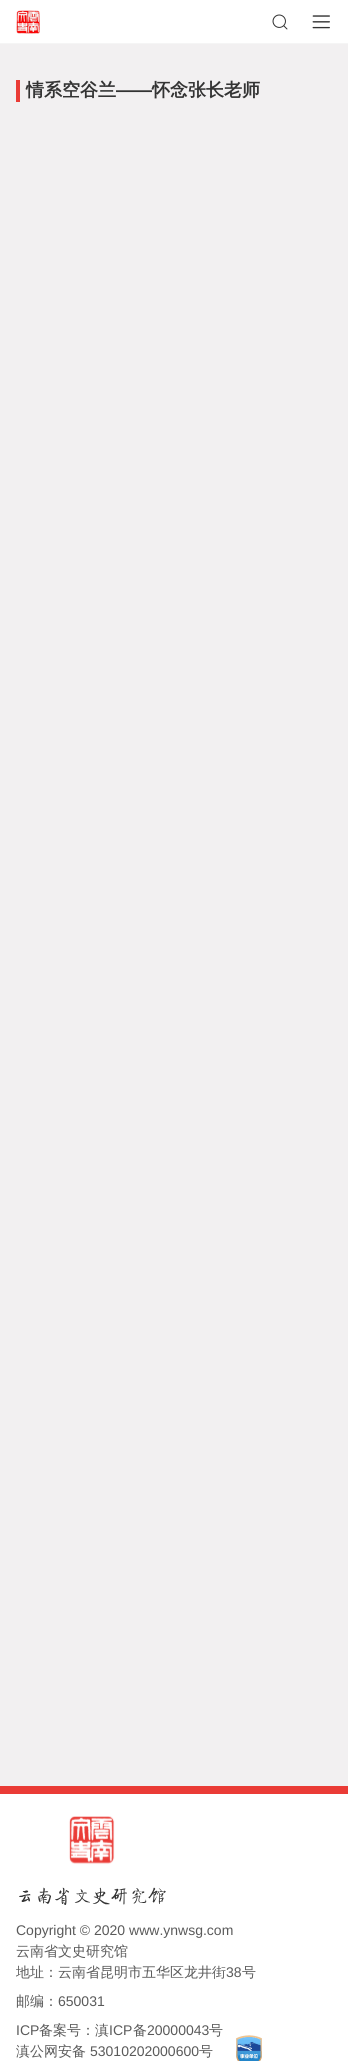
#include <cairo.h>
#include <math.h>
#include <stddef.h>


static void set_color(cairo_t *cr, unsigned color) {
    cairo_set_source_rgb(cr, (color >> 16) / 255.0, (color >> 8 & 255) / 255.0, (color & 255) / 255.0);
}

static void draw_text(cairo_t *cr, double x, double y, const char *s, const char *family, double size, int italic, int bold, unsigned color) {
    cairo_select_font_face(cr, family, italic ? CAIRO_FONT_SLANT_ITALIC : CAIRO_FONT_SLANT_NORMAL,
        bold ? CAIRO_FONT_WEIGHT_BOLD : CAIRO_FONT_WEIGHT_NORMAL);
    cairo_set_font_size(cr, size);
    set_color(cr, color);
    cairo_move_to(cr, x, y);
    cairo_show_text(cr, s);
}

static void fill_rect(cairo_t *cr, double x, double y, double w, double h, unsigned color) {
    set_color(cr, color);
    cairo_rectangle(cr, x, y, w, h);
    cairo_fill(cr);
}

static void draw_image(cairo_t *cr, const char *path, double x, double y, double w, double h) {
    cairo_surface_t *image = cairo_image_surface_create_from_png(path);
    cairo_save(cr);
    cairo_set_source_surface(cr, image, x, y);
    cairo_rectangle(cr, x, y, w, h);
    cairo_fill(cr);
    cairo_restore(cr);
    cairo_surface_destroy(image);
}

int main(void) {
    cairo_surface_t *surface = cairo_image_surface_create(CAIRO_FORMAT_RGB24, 348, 2061);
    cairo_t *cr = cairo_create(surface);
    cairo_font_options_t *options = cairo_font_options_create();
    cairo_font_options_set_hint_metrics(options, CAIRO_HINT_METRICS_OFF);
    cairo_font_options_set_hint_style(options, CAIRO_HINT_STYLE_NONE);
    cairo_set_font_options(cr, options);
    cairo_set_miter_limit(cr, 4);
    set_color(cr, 0xFFFFFF);
    cairo_paint(cr);
    fill_rect(cr, 0, 43, 348, 1, 0xF5F5F5);
    draw_image(cr, "assets/img1.png", 16, 10, 24, 24);
    draw_image(cr, "assets/img2.png", 272, 14, 16, 16);
    draw_image(cr, "assets/img3.png", 312, 15, 18, 14);
    fill_rect(cr, 0, 44, 348, 1742, 0xF2F0F1);
    fill_rect(cr, 16, 80, 4, 22, 0xEA3B36);
    draw_text(cr, 26, 96, "情系空谷兰", "WenQuanYi Zen Hei", 18, 0, 1, 0x333333);
    draw_text(cr, 116, 96, "——", "Liberation Sans", 18, 0, 1, 0x333333);
    draw_text(cr, 152, 96, "怀念张长老师", "WenQuanYi Zen Hei", 18, 0, 1, 0x333333);
    fill_rect(cr, 0, 1786, 348, 8, 0xEA3B36);
    draw_image(cr, "assets/img4.png", 19, 1816, 147, 89);
    draw_text(cr, 16, 1935, "Copyright © 2020 www.ynwsg.com", "Liberation Sans", 14, 0, 0, 0x5A5A5A);
    draw_text(cr, 16, 1956, "云南省文史研究馆", "WenQuanYi Zen Hei Medium", 14, 0, 0, 0x5A5A5A);
    draw_text(cr, 16, 1977, "地址：云南省昆明市五华区龙井街", "WenQuanYi Zen Hei Medium", 14, 0, 0, 0x5A5A5A);
    draw_text(cr, 226, 1977, "38", "Liberation Sans", 14, 0, 0, 0x5A5A5A);
    draw_text(cr, 242, 1977, "号", "WenQuanYi Zen Hei Medium", 14, 0, 0, 0x5A5A5A);
    draw_text(cr, 16, 2006, "邮编：", "WenQuanYi Zen Hei Medium", 14, 0, 0, 0x5A5A5A);
    draw_text(cr, 58, 2006, "650031", "Liberation Sans", 14, 0, 0, 0x5A5A5A);
    draw_text(cr, 16, 2035, "ICP", "Liberation Sans", 14, 0, 0, 0x5A5A5A);
    draw_text(cr, 39, 2035, "备案号：滇", "WenQuanYi Zen Hei Medium", 14, 0, 0, 0x5A5A5A);
    draw_text(cr, 109, 2035, "ICP", "Liberation Sans", 14, 0, 0, 0x5A5A5A);
    draw_text(cr, 133, 2035, "备", "WenQuanYi Zen Hei Medium", 14, 0, 0, 0x5A5A5A);
    draw_text(cr, 147, 2035, "20000043", "Liberation Sans", 14, 0, 0, 0x5A5A5A);
    draw_text(cr, 209, 2035, "号", "WenQuanYi Zen Hei Medium", 14, 0, 0, 0x5A5A5A);
    draw_text(cr, 16, 2056, "滇公网安备", "WenQuanYi Zen Hei Medium", 14, 0, 0, 0x5A5A5A);
    draw_text(cr, 90, 2056, "53010202000600", "Liberation Sans", 14, 0, 0, 0x5A5A5A);
    draw_text(cr, 199, 2056, "号", "WenQuanYi Zen Hei Medium", 14, 0, 0, 0x5A5A5A);
    draw_image(cr, "assets/img5.png", 236, 2035, 26, 26);
    cairo_surface_write_to_png(surface, "output.png");
    cairo_font_options_destroy(options);
    cairo_destroy(cr);
    cairo_surface_destroy(surface);
    return 0;
}
